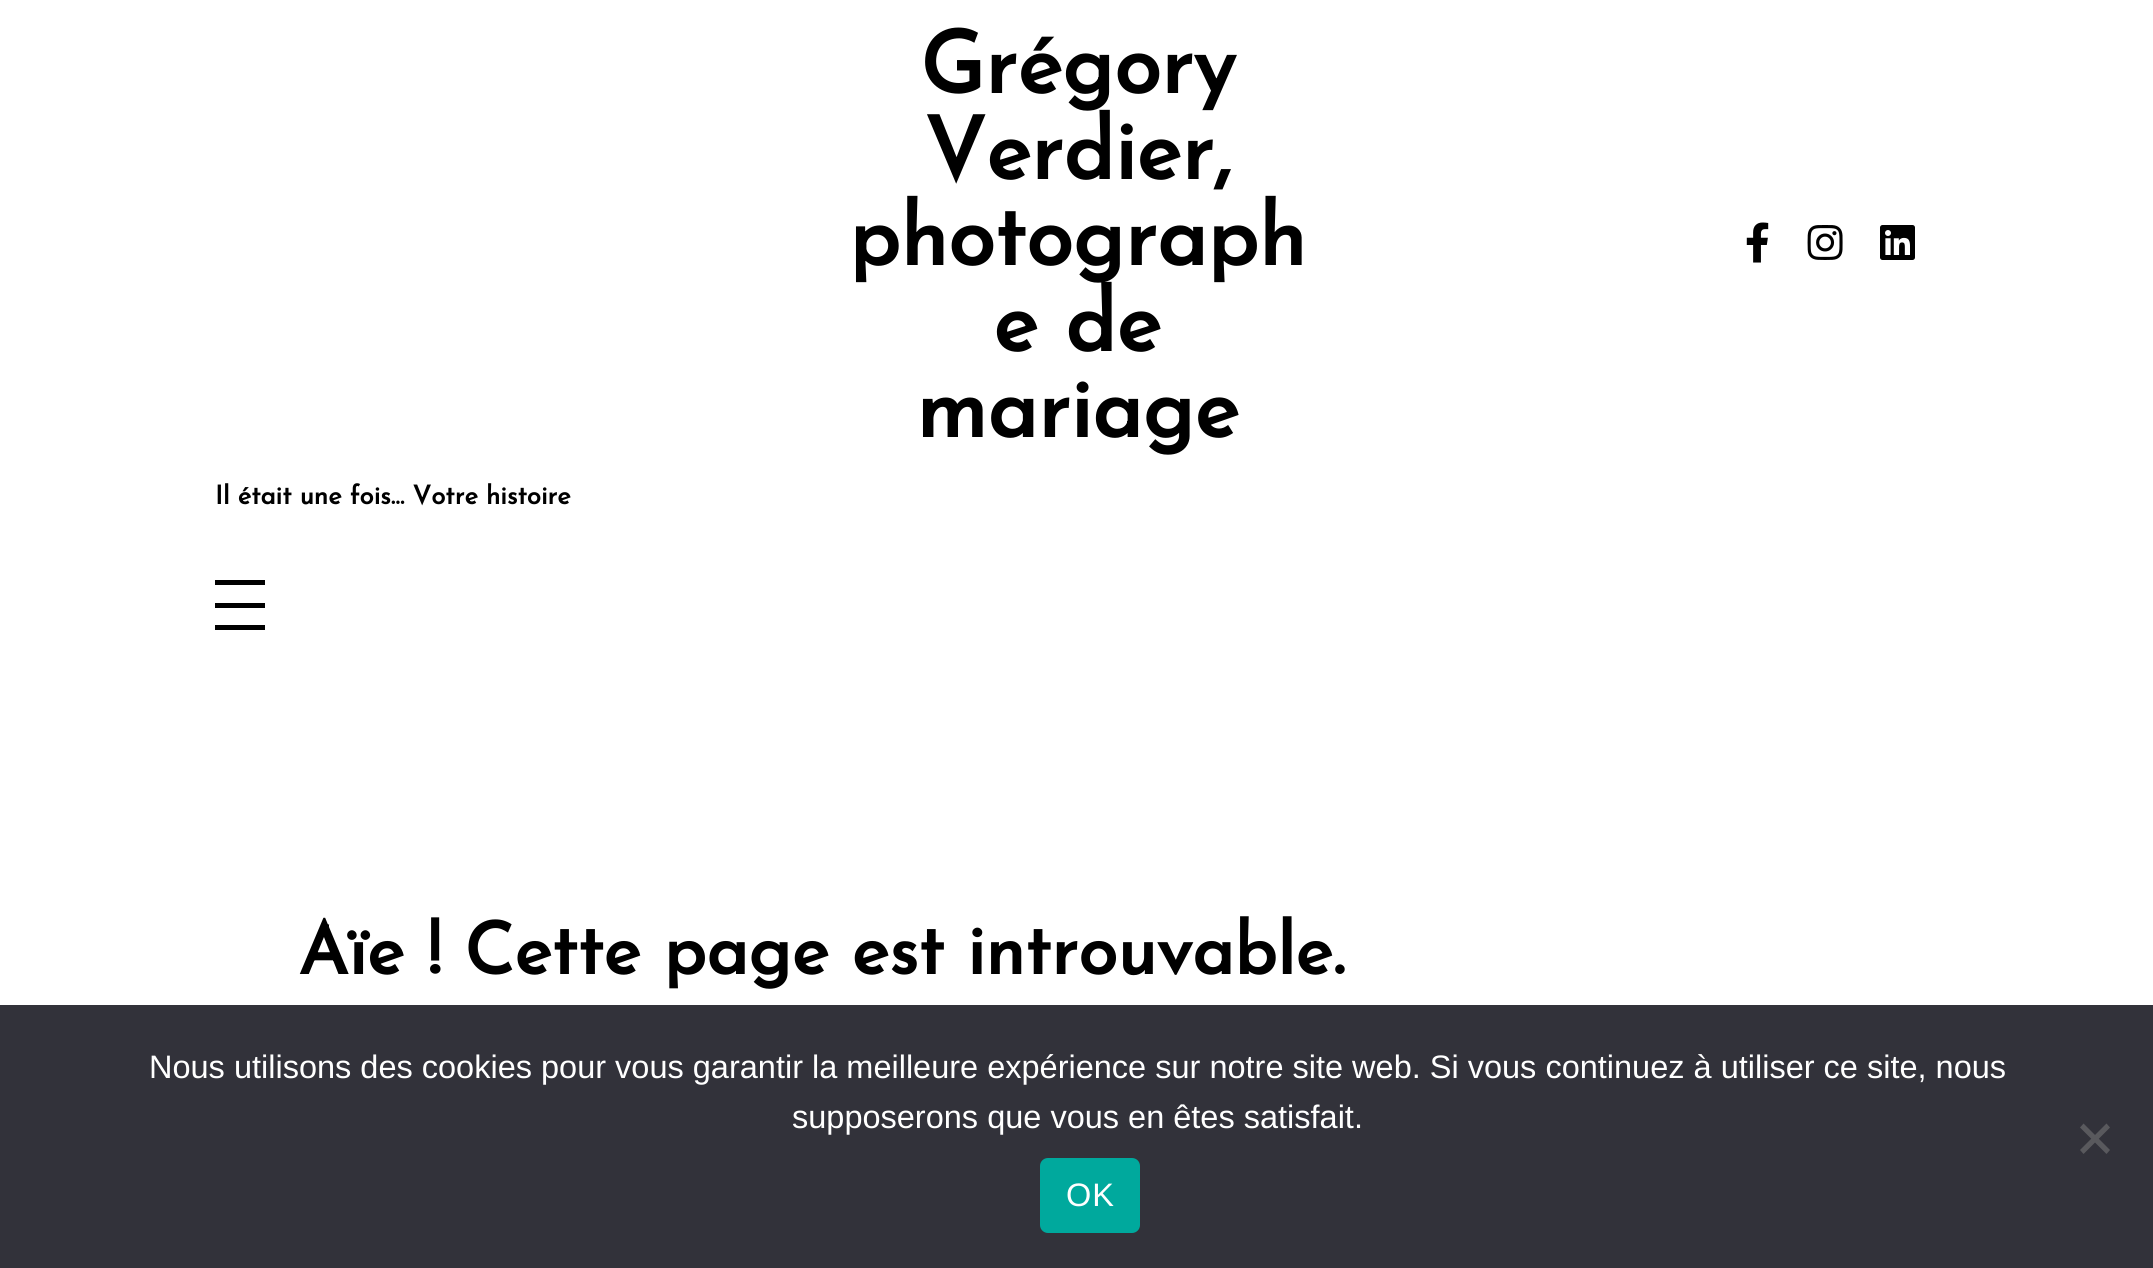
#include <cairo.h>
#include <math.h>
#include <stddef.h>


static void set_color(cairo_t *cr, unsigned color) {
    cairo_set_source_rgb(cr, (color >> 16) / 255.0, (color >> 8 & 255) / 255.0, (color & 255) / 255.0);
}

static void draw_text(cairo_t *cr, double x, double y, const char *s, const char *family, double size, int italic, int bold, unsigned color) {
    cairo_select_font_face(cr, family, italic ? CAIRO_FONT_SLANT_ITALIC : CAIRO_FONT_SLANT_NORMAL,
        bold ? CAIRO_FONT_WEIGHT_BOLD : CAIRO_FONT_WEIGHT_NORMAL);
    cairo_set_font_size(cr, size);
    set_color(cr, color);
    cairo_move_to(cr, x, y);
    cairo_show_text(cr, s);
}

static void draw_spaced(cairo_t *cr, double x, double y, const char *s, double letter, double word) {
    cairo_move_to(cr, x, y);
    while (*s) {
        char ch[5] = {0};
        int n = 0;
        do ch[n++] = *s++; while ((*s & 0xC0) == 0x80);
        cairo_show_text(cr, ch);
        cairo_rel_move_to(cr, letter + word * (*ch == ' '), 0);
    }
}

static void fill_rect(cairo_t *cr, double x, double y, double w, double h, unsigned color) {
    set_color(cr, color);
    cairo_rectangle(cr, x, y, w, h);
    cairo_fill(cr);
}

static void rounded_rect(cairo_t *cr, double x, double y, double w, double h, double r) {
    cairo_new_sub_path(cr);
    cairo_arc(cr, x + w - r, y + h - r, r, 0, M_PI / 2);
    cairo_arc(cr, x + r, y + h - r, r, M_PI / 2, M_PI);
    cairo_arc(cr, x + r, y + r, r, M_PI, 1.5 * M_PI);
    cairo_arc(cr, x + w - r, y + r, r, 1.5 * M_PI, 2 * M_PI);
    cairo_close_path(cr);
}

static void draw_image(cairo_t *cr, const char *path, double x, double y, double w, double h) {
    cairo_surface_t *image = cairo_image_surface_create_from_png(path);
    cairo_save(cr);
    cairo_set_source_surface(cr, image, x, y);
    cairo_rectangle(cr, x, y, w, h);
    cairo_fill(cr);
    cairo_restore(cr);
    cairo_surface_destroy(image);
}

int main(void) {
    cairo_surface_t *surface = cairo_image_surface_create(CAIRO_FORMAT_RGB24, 2153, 1268);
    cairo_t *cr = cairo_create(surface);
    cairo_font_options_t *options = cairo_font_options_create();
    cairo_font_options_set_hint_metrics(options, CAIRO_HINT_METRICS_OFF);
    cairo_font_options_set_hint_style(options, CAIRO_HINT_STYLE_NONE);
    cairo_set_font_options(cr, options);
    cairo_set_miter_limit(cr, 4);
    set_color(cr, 0xFFFFFF);
    cairo_paint(cr);
    draw_text(cr, 920, 93, "Grégory", "Josefin Sans", 86.25, 0, 1, 0x000000);
    draw_text(cr, 924, 179, "Verdier,", "Josefin Sans", 86.25, 0, 1, 0x000000);
    draw_text(cr, 849, 265, "photograph", "Josefin Sans", 86.25, 0, 1, 0x000000);
    draw_text(cr, 993, 351, "e de", "Josefin Sans", 86.25, 0, 1, 0x000000);
    draw_text(cr, 916, 437, "mariage", "Josefin Sans", 86.25, 0, 1, 0x000000);
    draw_image(cr, "assets/img1.png", 1746, 222, 23, 41);
    draw_image(cr, "assets/img2.png", 1807, 225, 36, 35);
    draw_image(cr, "assets/img3.png", 1880, 225, 35, 35);
    draw_text(cr, 215, 504, "Il était une fois… Votre histoire", "Josefin Sans", 25.9, 0, 1, 0x000000);
    fill_rect(cr, 215, 580, 50, 5, 0x000000);
    fill_rect(cr, 215, 603, 50, 5, 0x000000);
    fill_rect(cr, 215, 625, 50, 5, 0x000000);
    draw_text(cr, 298, 974, "Aïe ! Cette page est introuvable.", "Josefin Sans", 72, 0, 1, 0x000000);
    fill_rect(cr, 0, 1005, 2153, 263, 0x32323A);
    draw_text(cr, 149, 1078, "Nous utilisons des cookies pour vous garantir la meilleure expérience sur notre site web. Si vous continuez à utiliser ce site, nous", "Liberation Sans", 32.5, 0, 0, 0xFFFFFF);
    draw_text(cr, 792, 1128, "supposerons que vous en êtes satisfait.", "Liberation Sans", 32.5, 0, 0, 0xFFFFFF);
    set_color(cr, 0x59595D);
    cairo_new_path(cr);
    cairo_move_to(cr, 2106.5, 1123.5);
    cairo_line_to(cr, 2110, 1127.5);
    cairo_line_to(cr, 2083.5, 1154);
    cairo_line_to(cr, 2080, 1150);
    cairo_close_path(cr);
    cairo_fill(cr);
    cairo_new_path(cr);
    cairo_move_to(cr, 2080, 1127.5);
    cairo_line_to(cr, 2083.5, 1123.5);
    cairo_line_to(cr, 2110, 1150);
    cairo_line_to(cr, 2106.5, 1154);
    cairo_close_path(cr);
    cairo_fill(cr);
    set_color(cr, 0x00A99D);
    rounded_rect(cr, 1040, 1158, 100, 75, 8);
    cairo_fill(cr);
    set_color(cr, 0xFFFFFF);
    draw_spaced(cr, 1066, 1206, "OK", 1, 0);
    cairo_surface_write_to_png(surface, "output.png");
    cairo_font_options_destroy(options);
    cairo_destroy(cr);
    cairo_surface_destroy(surface);
    return 0;
}
